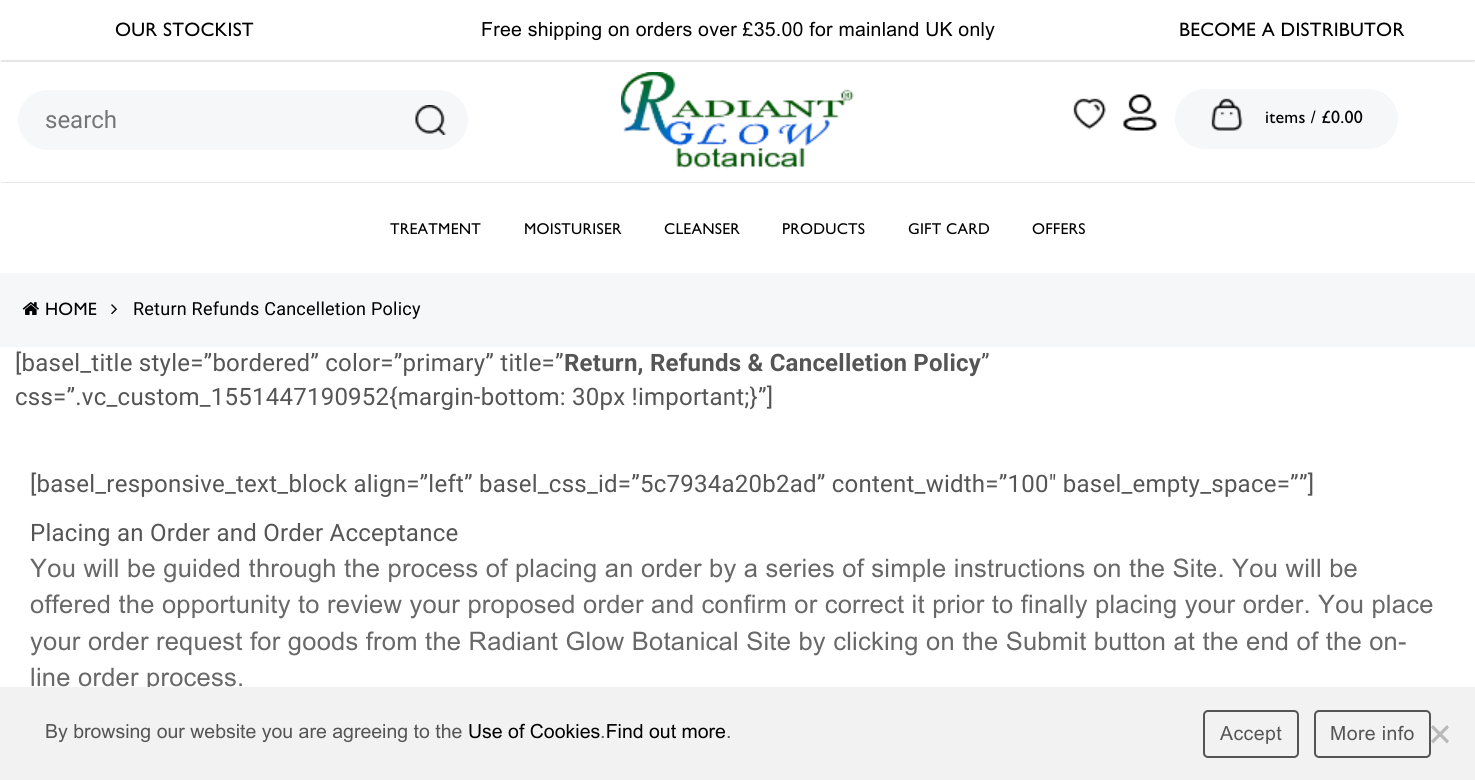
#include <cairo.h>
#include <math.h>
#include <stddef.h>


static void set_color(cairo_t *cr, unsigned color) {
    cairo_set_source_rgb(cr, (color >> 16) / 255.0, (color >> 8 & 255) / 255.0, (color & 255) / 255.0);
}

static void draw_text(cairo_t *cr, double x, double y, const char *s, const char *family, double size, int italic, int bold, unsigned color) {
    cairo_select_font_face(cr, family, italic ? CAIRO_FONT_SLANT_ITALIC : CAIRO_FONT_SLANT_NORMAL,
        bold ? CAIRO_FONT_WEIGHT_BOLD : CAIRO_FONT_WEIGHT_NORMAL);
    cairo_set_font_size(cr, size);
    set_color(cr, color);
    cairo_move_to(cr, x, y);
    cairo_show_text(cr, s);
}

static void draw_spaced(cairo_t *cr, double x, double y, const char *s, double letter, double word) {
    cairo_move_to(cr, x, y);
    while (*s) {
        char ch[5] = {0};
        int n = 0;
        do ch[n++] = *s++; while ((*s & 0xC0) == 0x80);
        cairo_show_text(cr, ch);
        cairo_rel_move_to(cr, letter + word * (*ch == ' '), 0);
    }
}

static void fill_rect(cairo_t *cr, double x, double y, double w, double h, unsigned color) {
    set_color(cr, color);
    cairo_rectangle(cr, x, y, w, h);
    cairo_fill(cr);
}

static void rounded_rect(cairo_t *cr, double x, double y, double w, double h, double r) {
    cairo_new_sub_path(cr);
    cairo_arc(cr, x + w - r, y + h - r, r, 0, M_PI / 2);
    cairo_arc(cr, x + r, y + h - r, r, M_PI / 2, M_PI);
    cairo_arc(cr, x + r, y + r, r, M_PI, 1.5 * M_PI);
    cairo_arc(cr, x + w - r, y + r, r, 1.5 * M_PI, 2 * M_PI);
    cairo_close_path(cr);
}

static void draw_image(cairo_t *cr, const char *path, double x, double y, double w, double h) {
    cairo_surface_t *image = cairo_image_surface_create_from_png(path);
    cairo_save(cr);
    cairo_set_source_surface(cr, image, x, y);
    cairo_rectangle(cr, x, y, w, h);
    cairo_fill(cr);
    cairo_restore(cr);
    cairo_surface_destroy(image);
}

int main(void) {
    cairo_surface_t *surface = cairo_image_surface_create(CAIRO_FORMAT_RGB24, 1475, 780);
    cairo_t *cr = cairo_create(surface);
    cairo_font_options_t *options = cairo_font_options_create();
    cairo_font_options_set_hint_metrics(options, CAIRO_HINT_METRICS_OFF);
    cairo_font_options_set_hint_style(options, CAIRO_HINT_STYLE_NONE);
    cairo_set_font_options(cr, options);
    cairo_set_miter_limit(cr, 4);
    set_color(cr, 0xFFFFFF);
    cairo_paint(cr);
    cairo_select_font_face(cr, "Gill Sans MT", CAIRO_FONT_SLANT_NORMAL, CAIRO_FONT_WEIGHT_NORMAL);
    cairo_set_font_size(cr, 19.5);
    set_color(cr, 0x000000);
    draw_spaced(cr, 115, 36, "OUR STOCKIST", 0.24, 0);
    cairo_select_font_face(cr, "Arial", CAIRO_FONT_SLANT_NORMAL, CAIRO_FONT_WEIGHT_NORMAL);
    draw_spaced(cr, 481, 36, "Free shipping on orders over £35.00 for mainland UK only", 0.24, 0);
    cairo_select_font_face(cr, "Gill Sans MT", CAIRO_FONT_SLANT_NORMAL, CAIRO_FONT_WEIGHT_NORMAL);
    draw_spaced(cr, 1179, 36, "BECOME A DISTRIBUTOR", 0.24, 0);
    set_color(cr, 0xE6E6E6);
    cairo_new_path(cr);
    cairo_move_to(cr, 0, 60);
    cairo_line_to(cr, 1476, 60);
    cairo_line_to(cr, 1474, 62);
    cairo_line_to(cr, 2, 62);
    cairo_close_path(cr);
    cairo_fill(cr);
    cairo_new_path(cr);
    cairo_move_to(cr, 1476, 183);
    cairo_line_to(cr, 0, 183);
    cairo_line_to(cr, 2, 182);
    cairo_line_to(cr, 1474, 182);
    cairo_close_path(cr);
    cairo_fill(cr);
    set_color(cr, 0xF5F7F9);
    rounded_rect(cr, 18, 90, 450, 60, 30);
    cairo_fill(cr);
    draw_text(cr, 45, 128, "search", "Roboto", 24, 0, 0, 0x757575);
    draw_image(cr, "assets/img1.png", 415, 105, 31, 30);
    draw_image(cr, "assets/img2.png", 621, 72, 233, 97);
    draw_image(cr, "assets/img3.png", 1073, 98, 33, 32);
    draw_image(cr, "assets/img4.png", 1123, 94, 34, 37);
    set_color(cr, 0xF5F7F9);
    rounded_rect(cr, 1175, 89, 223, 60, 30);
    cairo_fill(cr);
    draw_image(cr, "assets/img5.png", 1211, 98, 32, 33);
    cairo_select_font_face(cr, "Gill Sans MT", CAIRO_FONT_SLANT_NORMAL, CAIRO_FONT_WEIGHT_NORMAL);
    cairo_set_font_size(cr, 18);
    set_color(cr, 0x000000);
    draw_spaced(cr, 1265, 123, "items / £0.00", 0.24, 0);
    cairo_set_font_size(cr, 15.75);
    draw_spaced(cr, 390, 234, "TREATMENT", 0.24, 0);
    draw_spaced(cr, 524, 234, "MOISTURISER", 0.24, 0);
    draw_spaced(cr, 664, 234, "CLEANSER", 0.24, 0);
    draw_spaced(cr, 782, 234, "PRODUCTS", 0.24, 0);
    draw_spaced(cr, 908, 234, "GIFT CARD", 0.24, 0);
    draw_spaced(cr, 1032, 234, "OFFERS", 0.24, 0);
    fill_rect(cr, 0, 273, 1475, 74, 0xF5F7F9);
    draw_image(cr, "assets/img6.png", 22, 302, 17, 13);
    cairo_set_font_size(cr, 18);
    set_color(cr, 0x000000);
    draw_spaced(cr, 45, 315, "HOME", 0.24, 0);
    draw_image(cr, "assets/img7.png", 111, 304, 6, 11);
    cairo_select_font_face(cr, "Roboto", CAIRO_FONT_SLANT_NORMAL, CAIRO_FONT_WEIGHT_NORMAL);
    draw_spaced(cr, 133, 315, "Return Refunds Cancelletion Policy", 0.24, 0);
    cairo_set_font_size(cr, 24);
    set_color(cr, 0x555555);
    draw_spaced(cr, 15, 371, "[basel_title style=”bordered” color=”primary” title=”", 0.24, 0);
    cairo_select_font_face(cr, "Roboto", CAIRO_FONT_SLANT_NORMAL, CAIRO_FONT_WEIGHT_BOLD);
    draw_spaced(cr, 564, 371, "Return, Refunds & Cancelletion Policy", 0.24, 0);
    cairo_select_font_face(cr, "Roboto", CAIRO_FONT_SLANT_NORMAL, CAIRO_FONT_WEIGHT_NORMAL);
    draw_spaced(cr, 981, 371, "”", 0.24, 0);
    draw_spaced(cr, 15, 405, "css=”.vc_custom_1551447190952{margin-bottom: 30px !important;}”]", 0.24, 0);
    draw_spaced(cr, 30, 492, "[basel_responsive_text_block align=”left” basel_css_id=”5c7934a20b2ad” content_width=”100″ basel_empty_space=””]", 0.24, 0);
    draw_spaced(cr, 30, 541, "Placing an Order and Order Acceptance", 0.24, 0);
    cairo_select_font_face(cr, "Arial", CAIRO_FONT_SLANT_NORMAL, CAIRO_FONT_WEIGHT_NORMAL);
    cairo_set_font_size(cr, 25.5);
    set_color(cr, 0x686868);
    draw_spaced(cr, 30, 577, "You will be guided through the process of placing an order by a series of simple instructions on the Site. You will be", 0.24, 0);
    draw_spaced(cr, 30, 613, "offered the opportunity to review your proposed order and confirm or correct it prior to finally placing your order. You place", 0.24, 0);
    draw_spaced(cr, 30, 650, "your order request for goods from the Radiant Glow Botanical Site by clicking on the Submit button at the end of the on-", 0.24, 0);
    draw_spaced(cr, 30, 686, "line order process.", 0.24, 0);
    fill_rect(cr, 0, 687, 1475, 93, 0xF2F2F2);
    draw_text(cr, 45, 738, "By browsing our website you are agreeing to the", "Arial", 19.5, 0, 0, 0x555555);
    draw_text(cr, 468, 738, "Use of Cookies Find out more", "Arial", 19.5, 0, 0, 0x000000);
    draw_text(cr, 600, 738, ".", "Arial", 19.5, 0, 0, 0x555555);
    draw_text(cr, 726, 738, ".", "Arial", 19.5, 0, 0, 0x555555);
    rounded_rect(cr, 1204, 711, 94, 46, 4);
    cairo_stroke(cr);
    draw_spaced(cr, 1220, 740, "Accept", 0.4, 0);
    rounded_rect(cr, 1315, 711, 115, 46, 4);
    cairo_stroke(cr);
    draw_spaced(cr, 1330, 740, "More info", 0.4, 0);
    set_color(cr, 0xB9B9B9);
    cairo_new_path(cr);
    cairo_move_to(cr, 1447, 725);
    cairo_line_to(cr, 1449, 727.5);
    cairo_line_to(cr, 1433, 743.5);
    cairo_line_to(cr, 1431, 741);
    cairo_close_path(cr);
    cairo_fill(cr);
    cairo_new_path(cr);
    cairo_move_to(cr, 1431, 727.5);
    cairo_line_to(cr, 1433, 725);
    cairo_line_to(cr, 1449, 741);
    cairo_line_to(cr, 1447, 743.5);
    cairo_close_path(cr);
    cairo_fill(cr);
    cairo_surface_write_to_png(surface, "output.png");
    cairo_font_options_destroy(options);
    cairo_destroy(cr);
    cairo_surface_destroy(surface);
    return 0;
}
